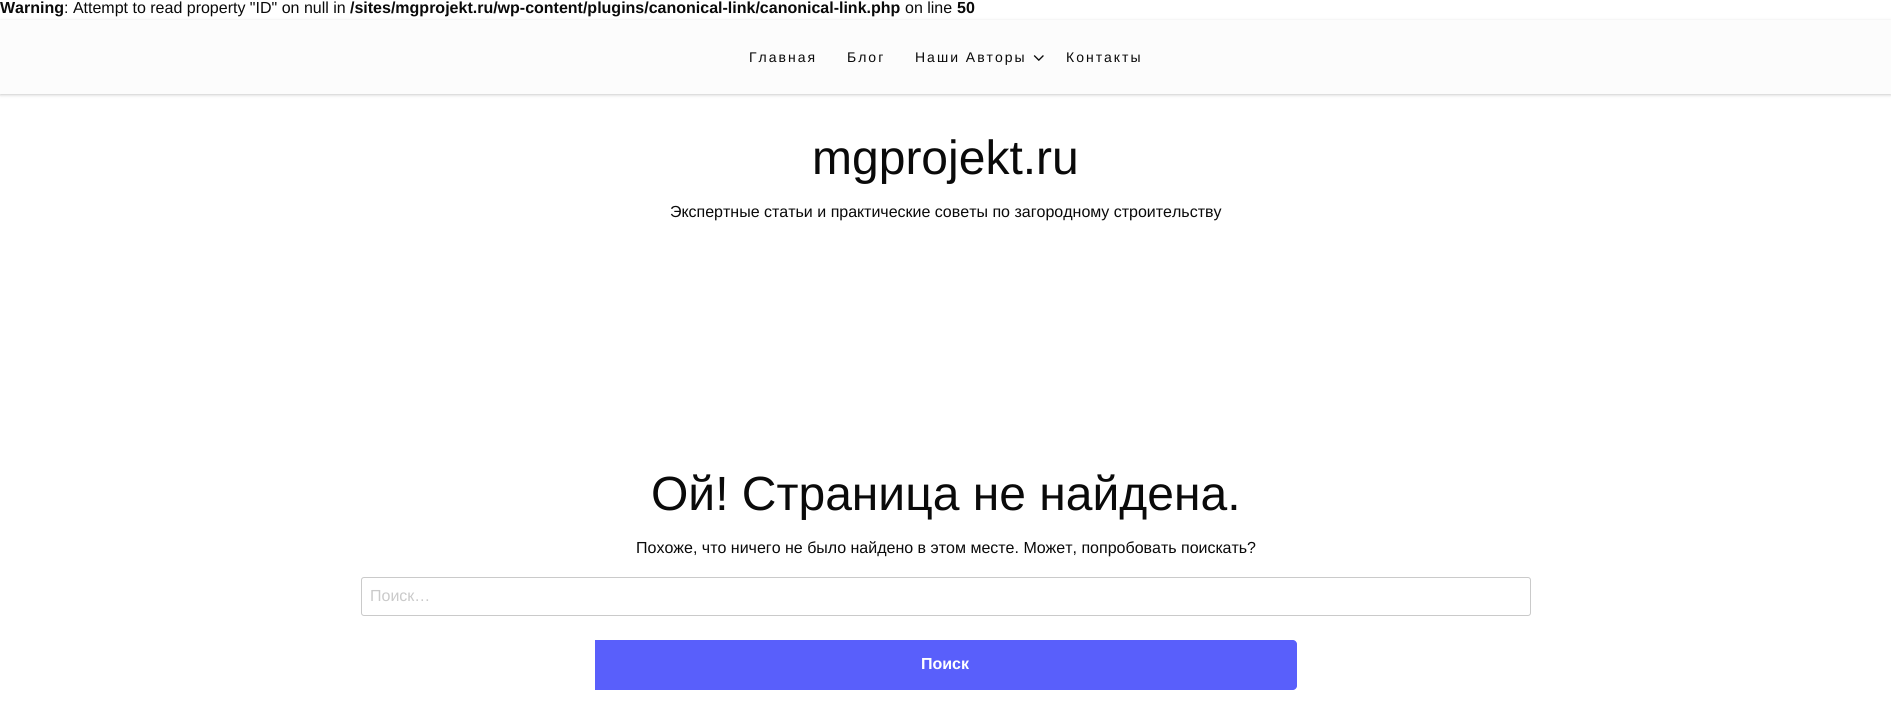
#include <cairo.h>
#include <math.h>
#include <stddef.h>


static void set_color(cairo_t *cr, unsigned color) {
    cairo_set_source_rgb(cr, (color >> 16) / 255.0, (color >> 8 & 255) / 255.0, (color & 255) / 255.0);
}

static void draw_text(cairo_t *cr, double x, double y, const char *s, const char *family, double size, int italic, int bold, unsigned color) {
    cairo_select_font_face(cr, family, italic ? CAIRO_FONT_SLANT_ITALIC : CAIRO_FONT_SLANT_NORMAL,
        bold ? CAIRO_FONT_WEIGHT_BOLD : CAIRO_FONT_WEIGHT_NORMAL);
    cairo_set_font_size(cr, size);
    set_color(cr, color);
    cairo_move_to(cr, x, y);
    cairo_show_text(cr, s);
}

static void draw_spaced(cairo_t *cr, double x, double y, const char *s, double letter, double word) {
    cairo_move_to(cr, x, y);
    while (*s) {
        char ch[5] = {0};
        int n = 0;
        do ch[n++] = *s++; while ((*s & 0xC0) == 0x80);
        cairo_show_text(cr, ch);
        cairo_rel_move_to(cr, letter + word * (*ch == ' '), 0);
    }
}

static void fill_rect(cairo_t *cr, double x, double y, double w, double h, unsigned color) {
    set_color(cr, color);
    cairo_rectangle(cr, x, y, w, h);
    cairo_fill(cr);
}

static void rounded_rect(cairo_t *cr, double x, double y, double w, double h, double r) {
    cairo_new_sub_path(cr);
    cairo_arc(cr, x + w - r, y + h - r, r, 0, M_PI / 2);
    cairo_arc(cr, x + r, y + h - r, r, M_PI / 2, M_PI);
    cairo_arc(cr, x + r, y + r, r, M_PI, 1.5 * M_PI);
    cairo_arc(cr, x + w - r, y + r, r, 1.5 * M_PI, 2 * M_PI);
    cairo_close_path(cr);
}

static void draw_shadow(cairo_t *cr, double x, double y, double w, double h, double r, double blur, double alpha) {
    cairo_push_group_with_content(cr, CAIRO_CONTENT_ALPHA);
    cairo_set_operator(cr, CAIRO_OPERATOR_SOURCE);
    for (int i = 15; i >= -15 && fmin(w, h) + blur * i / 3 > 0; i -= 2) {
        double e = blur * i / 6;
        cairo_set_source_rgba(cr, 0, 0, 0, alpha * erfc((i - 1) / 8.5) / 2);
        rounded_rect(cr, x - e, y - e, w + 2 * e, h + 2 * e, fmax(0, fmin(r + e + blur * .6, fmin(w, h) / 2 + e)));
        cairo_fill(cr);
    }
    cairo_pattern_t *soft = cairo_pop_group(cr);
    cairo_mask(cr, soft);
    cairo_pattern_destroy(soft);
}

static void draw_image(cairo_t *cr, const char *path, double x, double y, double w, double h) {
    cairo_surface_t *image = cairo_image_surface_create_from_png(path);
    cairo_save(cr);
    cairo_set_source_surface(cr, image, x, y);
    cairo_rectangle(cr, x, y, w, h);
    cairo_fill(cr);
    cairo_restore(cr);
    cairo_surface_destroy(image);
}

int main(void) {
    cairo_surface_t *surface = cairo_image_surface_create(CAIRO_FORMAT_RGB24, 1891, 711);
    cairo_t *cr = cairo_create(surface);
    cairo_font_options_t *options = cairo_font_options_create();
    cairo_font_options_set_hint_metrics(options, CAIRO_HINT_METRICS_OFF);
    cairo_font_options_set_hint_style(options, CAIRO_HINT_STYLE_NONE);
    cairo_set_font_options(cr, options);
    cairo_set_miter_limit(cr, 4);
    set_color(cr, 0xFFFFFF);
    cairo_paint(cr);
    draw_text(cr, 0, 13, "Warning", "Liberation Sans", 16, 0, 1, 0x0A0A0A);
    draw_text(cr, 64, 13, ": Attempt to read property \"ID\" on null in", "Liberation Sans", 16, 0, 0, 0x0A0A0A);
    draw_text(cr, 350, 13, "/sites/mgprojekt.ru/wp-content/plugins/canonical-link/canonical-link.php", "Liberation Sans", 16, 0, 1, 0x0A0A0A);
    draw_text(cr, 905, 13, "on line", "Liberation Sans", 16, 0, 0, 0x0A0A0A);
    draw_text(cr, 957, 13, "50", "Liberation Sans", 16, 0, 1, 0x0A0A0A);
    set_color(cr, 0x000000);
    draw_shadow(cr, 0, 21, 1891, 74, 0, 2.5, 0.08);
    draw_shadow(cr, 0, 21, 1891, 74, 0, 1, 0.13);
    fill_rect(cr, 0, 20, 1891, 74, 0xFCFCFC);
    cairo_select_font_face(cr, "Liberation Sans", CAIRO_FONT_SLANT_NORMAL, CAIRO_FONT_WEIGHT_NORMAL);
    cairo_set_font_size(cr, 14);
    set_color(cr, 0x0A0A0A);
    draw_spaced(cr, 749, 62, "Главная", 2, 0);
    draw_spaced(cr, 847, 62, "Блог", 2, 0);
    draw_spaced(cr, 915, 62, "Наши Авторы", 2, 0);
    draw_image(cr, "assets/img1.png", 1033, 55, 11, 6);
    draw_spaced(cr, 1066, 62, "Контакты", 2, 0);
    draw_text(cr, 812, 174, "mgprojekt.ru", "Liberation Sans", 48, 0, 0, 0x0A0A0A);
    draw_text(cr, 670, 217, "Экспертные статьи и практические советы по загородному строительству", "Liberation Sans", 16, 0, 0, 0x0A0A0A);
    draw_text(cr, 651, 510, "Ой! Страница не найдена.", "Liberation Sans", 48, 0, 0, 0x0A0A0A);
    draw_text(cr, 636, 553, "Похоже, что ничего не было найдено в этом месте. Может, попробовать поискать?", "Liberation Sans", 16, 0, 0, 0x0A0A0A);
    rounded_rect(cr, 361.5, 577.5, 1169, 38, 2.5);
    set_color(cr, 0xCACACA);
    cairo_set_line_width(cr, 1);
    cairo_stroke(cr);
    draw_text(cr, 370, 601, "Поиск…", "Liberation Sans", 16, 0, 0, 0xCACACA);
    set_color(cr, 0x595FFB);
    cairo_new_path(cr);
    cairo_move_to(cr, 595, 640);
    cairo_line_to(cr, 1293, 640);
    cairo_curve_to(cr, 1295, 640, 1297, 642, 1297, 644);
    cairo_line_to(cr, 1297, 686);
    cairo_curve_to(cr, 1297, 688, 1295, 690, 1293, 690);
    cairo_line_to(cr, 595, 690);
    cairo_close_path(cr);
    cairo_fill(cr);
    draw_text(cr, 921, 669, "Поиск", "Liberation Sans", 16, 0, 1, 0xFFFFFF);
    cairo_surface_write_to_png(surface, "output.png");
    cairo_font_options_destroy(options);
    cairo_destroy(cr);
    cairo_surface_destroy(surface);
    return 0;
}
